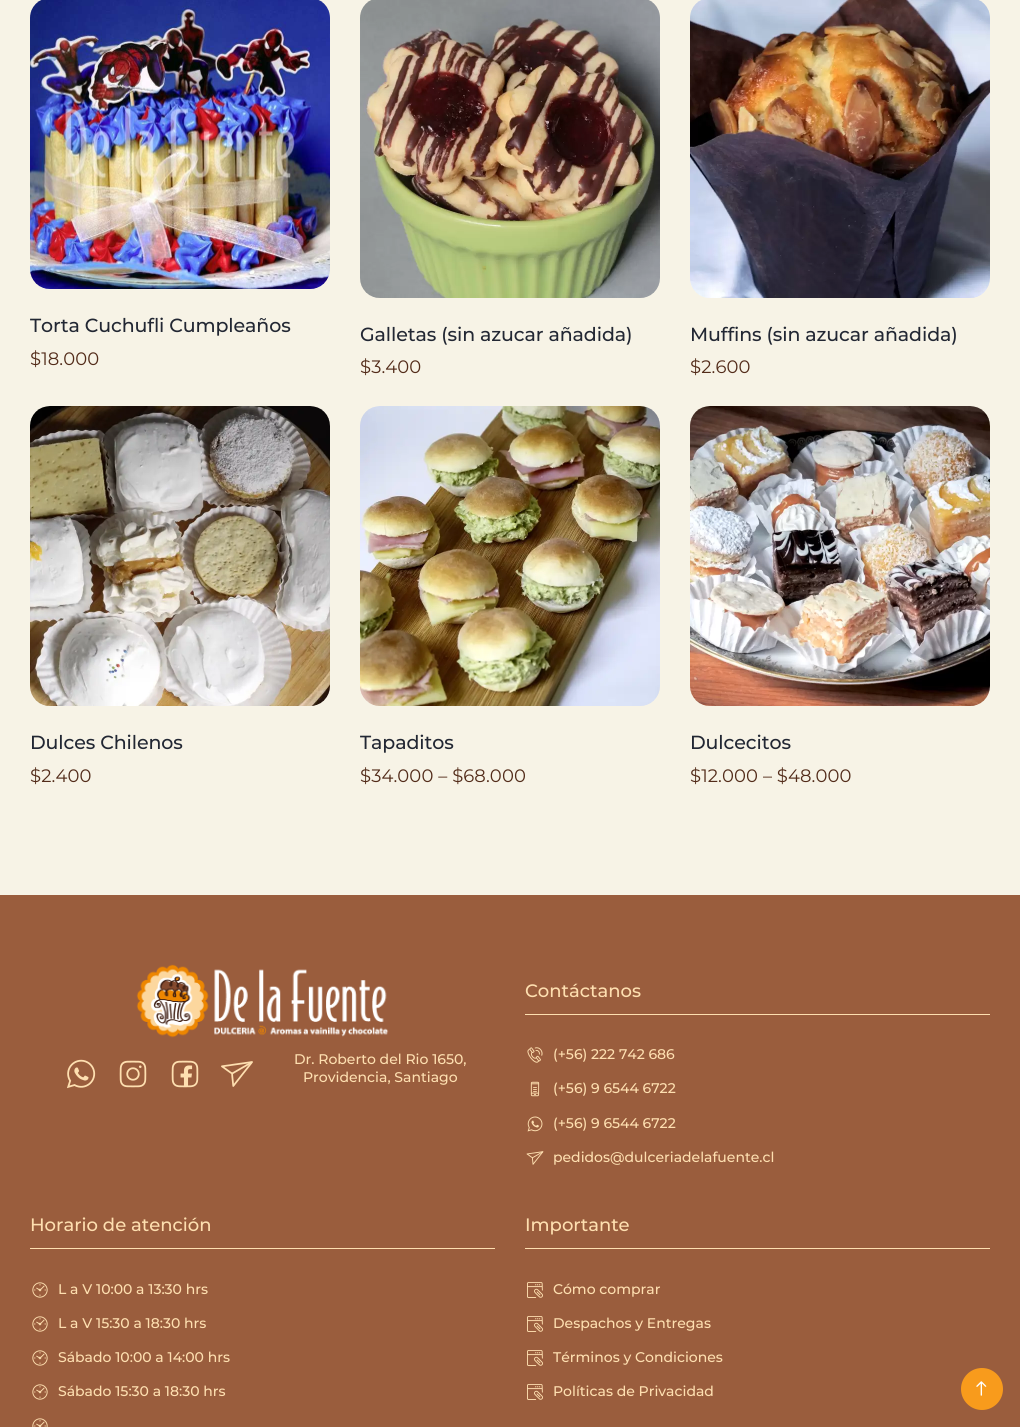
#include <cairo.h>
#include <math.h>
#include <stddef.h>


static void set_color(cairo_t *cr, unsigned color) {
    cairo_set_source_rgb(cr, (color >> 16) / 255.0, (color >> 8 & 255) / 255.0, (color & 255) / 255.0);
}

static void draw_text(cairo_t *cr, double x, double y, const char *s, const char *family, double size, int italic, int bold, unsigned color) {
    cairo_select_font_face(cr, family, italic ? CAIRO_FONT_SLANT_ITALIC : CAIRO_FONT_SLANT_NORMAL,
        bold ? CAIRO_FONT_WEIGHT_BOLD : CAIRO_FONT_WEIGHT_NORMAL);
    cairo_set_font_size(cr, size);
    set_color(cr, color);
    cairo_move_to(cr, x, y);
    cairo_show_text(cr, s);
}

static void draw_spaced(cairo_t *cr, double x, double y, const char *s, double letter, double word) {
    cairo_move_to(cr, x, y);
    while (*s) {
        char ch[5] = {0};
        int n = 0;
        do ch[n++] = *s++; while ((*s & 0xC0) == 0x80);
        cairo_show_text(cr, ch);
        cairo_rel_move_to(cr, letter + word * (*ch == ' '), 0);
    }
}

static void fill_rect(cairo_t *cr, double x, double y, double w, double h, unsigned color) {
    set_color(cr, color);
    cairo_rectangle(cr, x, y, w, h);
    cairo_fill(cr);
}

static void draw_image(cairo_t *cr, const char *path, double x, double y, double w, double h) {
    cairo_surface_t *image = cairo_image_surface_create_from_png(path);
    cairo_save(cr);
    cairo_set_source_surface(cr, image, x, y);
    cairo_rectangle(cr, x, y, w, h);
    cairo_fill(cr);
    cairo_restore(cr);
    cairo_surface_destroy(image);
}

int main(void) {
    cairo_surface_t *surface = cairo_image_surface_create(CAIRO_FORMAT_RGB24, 1020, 1427);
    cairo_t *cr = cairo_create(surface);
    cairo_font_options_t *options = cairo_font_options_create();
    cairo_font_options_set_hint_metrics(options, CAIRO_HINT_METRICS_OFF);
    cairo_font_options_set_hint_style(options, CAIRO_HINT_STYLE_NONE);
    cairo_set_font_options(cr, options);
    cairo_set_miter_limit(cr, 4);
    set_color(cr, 0xF7F3E6);
    cairo_paint(cr);
    draw_image(cr, "assets/img1.png", 30, 0, 300, 289);
    cairo_select_font_face(cr, "Montserrat Medium", CAIRO_FONT_SLANT_NORMAL, CAIRO_FONT_WEIGHT_NORMAL);
    cairo_set_font_size(cr, 19);
    set_color(cr, 0x222733);
    draw_spaced(cr, 30, 332, "Torta Cuchufli Cumpleaños", -0.1, 0);
    cairo_select_font_face(cr, "Montserrat", CAIRO_FONT_SLANT_NORMAL, CAIRO_FONT_WEIGHT_NORMAL);
    cairo_set_font_size(cr, 18);
    set_color(cr, 0x532C1A);
    draw_spaced(cr, 30, 365, "$18.000", 0.1, 0);
    draw_image(cr, "assets/img2.png", 360, 0, 300, 298);
    cairo_select_font_face(cr, "Montserrat Medium", CAIRO_FONT_SLANT_NORMAL, CAIRO_FONT_WEIGHT_NORMAL);
    cairo_set_font_size(cr, 19);
    set_color(cr, 0x222733);
    draw_spaced(cr, 360, 341, "Galletas (sin azucar añadida)", -0.1, 0);
    cairo_select_font_face(cr, "Montserrat", CAIRO_FONT_SLANT_NORMAL, CAIRO_FONT_WEIGHT_NORMAL);
    cairo_set_font_size(cr, 18);
    set_color(cr, 0x532C1A);
    draw_spaced(cr, 360, 373, "$3.400", 0.1, 0);
    draw_image(cr, "assets/img3.png", 690, 0, 300, 298);
    cairo_select_font_face(cr, "Montserrat Medium", CAIRO_FONT_SLANT_NORMAL, CAIRO_FONT_WEIGHT_NORMAL);
    cairo_set_font_size(cr, 19);
    set_color(cr, 0x222733);
    draw_spaced(cr, 690, 341, "Muffins (sin azucar añadida)", -0.1, 0);
    cairo_select_font_face(cr, "Montserrat", CAIRO_FONT_SLANT_NORMAL, CAIRO_FONT_WEIGHT_NORMAL);
    cairo_set_font_size(cr, 18);
    set_color(cr, 0x532C1A);
    draw_spaced(cr, 690, 373, "$2.600", 0.1, 0);
    draw_image(cr, "assets/img4.png", 30, 406, 300, 300);
    cairo_select_font_face(cr, "Montserrat Medium", CAIRO_FONT_SLANT_NORMAL, CAIRO_FONT_WEIGHT_NORMAL);
    cairo_set_font_size(cr, 19);
    set_color(cr, 0x222733);
    draw_spaced(cr, 30, 749, "Dulces Chilenos", -0.1, 0);
    cairo_select_font_face(cr, "Montserrat", CAIRO_FONT_SLANT_NORMAL, CAIRO_FONT_WEIGHT_NORMAL);
    cairo_set_font_size(cr, 18);
    set_color(cr, 0x532C1A);
    draw_spaced(cr, 30, 782, "$2.400", 0.1, 0);
    draw_image(cr, "assets/img5.png", 360, 406, 300, 300);
    cairo_select_font_face(cr, "Montserrat Medium", CAIRO_FONT_SLANT_NORMAL, CAIRO_FONT_WEIGHT_NORMAL);
    cairo_set_font_size(cr, 19);
    set_color(cr, 0x222733);
    draw_spaced(cr, 360, 749, "Tapaditos", -0.1, 0);
    cairo_select_font_face(cr, "Montserrat", CAIRO_FONT_SLANT_NORMAL, CAIRO_FONT_WEIGHT_NORMAL);
    cairo_set_font_size(cr, 18);
    set_color(cr, 0x532C1A);
    draw_spaced(cr, 360, 782, "$34.000 – $68.000", 0.1, 0);
    draw_image(cr, "assets/img6.png", 690, 406, 300, 300);
    cairo_select_font_face(cr, "Montserrat Medium", CAIRO_FONT_SLANT_NORMAL, CAIRO_FONT_WEIGHT_NORMAL);
    cairo_set_font_size(cr, 19);
    set_color(cr, 0x222733);
    draw_spaced(cr, 690, 749, "Dulcecitos", -0.1, 0);
    cairo_select_font_face(cr, "Montserrat", CAIRO_FONT_SLANT_NORMAL, CAIRO_FONT_WEIGHT_NORMAL);
    cairo_set_font_size(cr, 18);
    set_color(cr, 0x532C1A);
    draw_spaced(cr, 690, 782, "$12.000 – $48.000", 0.1, 0);
    fill_rect(cr, 0, 895, 1020, 532, 0x9A5D3D);
    draw_image(cr, "assets/img7.png", 136, 964, 253, 74);
    draw_image(cr, "assets/img8.png", 67, 1059, 29, 30);
    draw_image(cr, "assets/img9.png", 119, 1060, 28, 28);
    draw_image(cr, "assets/img10.png", 171, 1060, 28, 28);
    draw_image(cr, "assets/img11.png", 221, 1061, 32, 26);
    draw_text(cr, 294, 1064, "Dr. Roberto del Rio 1650,", "Montserrat Medium", 14, 0, 0, 0xFEDFB0);
    draw_text(cr, 303, 1082, "Providencia, Santiago", "Montserrat Medium", 14, 0, 0, 0xFEDFB0);
    draw_text(cr, 525, 997, "Contáctanos", "Montserrat Medium", 18, 0, 0, 0xFEDFB0);
    fill_rect(cr, 525, 1014, 465, 1, 0xFEDFB0);
    draw_image(cr, "assets/img12.png", 527, 1047, 16, 16);
    draw_text(cr, 553, 1059, "(+56) 222 742 686", "Montserrat Medium", 14, 0, 0, 0xFEDFB0);
    draw_image(cr, "assets/img13.png", 530, 1081, 10, 16);
    draw_text(cr, 553, 1093, "(+56) 9 6544 6722", "Montserrat Medium", 14, 0, 0, 0xFEDFB0);
    draw_image(cr, "assets/img14.png", 527, 1116, 16, 16);
    draw_text(cr, 553, 1128, "(+56) 9 6544 6722", "Montserrat Medium", 14, 0, 0, 0xFEDFB0);
    draw_image(cr, "assets/img15.png", 526, 1151, 18, 14);
    draw_text(cr, 553, 1162, "pedidos@dulceriadelafuente.cl", "Montserrat Medium", 14, 0, 0, 0xFEDFB0);
    draw_text(cr, 30, 1231, "Horario de atención", "Montserrat Medium", 18, 0, 0, 0xFEDFB0);
    fill_rect(cr, 30, 1248, 465, 1, 0xFEDFB0);
    draw_image(cr, "assets/img16.png", 32, 1282, 16, 16);
    draw_text(cr, 58, 1294, "L a V 10:00 a 13:30 hrs", "Montserrat Medium", 14, 0, 0, 0xFEDFB0);
    draw_image(cr, "assets/img16.png", 32, 1316, 16, 16);
    draw_text(cr, 58, 1328, "L a V 15:30 a 18:30 hrs", "Montserrat Medium", 14, 0, 0, 0xFEDFB0);
    draw_image(cr, "assets/img16.png", 32, 1350, 16, 16);
    draw_text(cr, 58, 1362, "Sábado 10:00 a 14:00 hrs", "Montserrat Medium", 14, 0, 0, 0xFEDFB0);
    draw_image(cr, "assets/img16.png", 32, 1384, 16, 16);
    draw_text(cr, 58, 1396, "Sábado 15:30 a 18:30 hrs", "Montserrat Medium", 14, 0, 0, 0xFEDFB0);
    draw_image(cr, "assets/img17.png", 32, 1418, 16, 9);
    draw_text(cr, 525, 1231, "Importante", "Montserrat Medium", 18, 0, 0, 0xFEDFB0);
    fill_rect(cr, 525, 1248, 465, 1, 0xFEDFB0);
    draw_image(cr, "assets/img18.png", 527, 1282, 16, 16);
    draw_text(cr, 553, 1294, "Cómo comprar", "Montserrat Medium", 14, 0, 0, 0xFEDFB0);
    draw_image(cr, "assets/img18.png", 527, 1316, 16, 16);
    draw_text(cr, 553, 1328, "Despachos y Entregas", "Montserrat Medium", 14, 0, 0, 0xFEDFB0);
    draw_image(cr, "assets/img18.png", 527, 1350, 16, 16);
    draw_text(cr, 553, 1362, "Términos y Condiciones", "Montserrat Medium", 14, 0, 0, 0xFEDFB0);
    draw_image(cr, "assets/img18.png", 527, 1384, 16, 16);
    draw_text(cr, 553, 1396, "Políticas de Privacidad", "Montserrat Medium", 14, 0, 0, 0xFEDFB0);
    set_color(cr, 0xF89B1C);
    cairo_new_path(cr);
    cairo_arc(cr, 982, 1389, 21, 0, 2 * M_PI);
    cairo_fill(cr);
    draw_image(cr, "assets/img19.png", 976, 1381, 11, 15);
    cairo_surface_write_to_png(surface, "output.png");
    cairo_font_options_destroy(options);
    cairo_destroy(cr);
    cairo_surface_destroy(surface);
    return 0;
}
